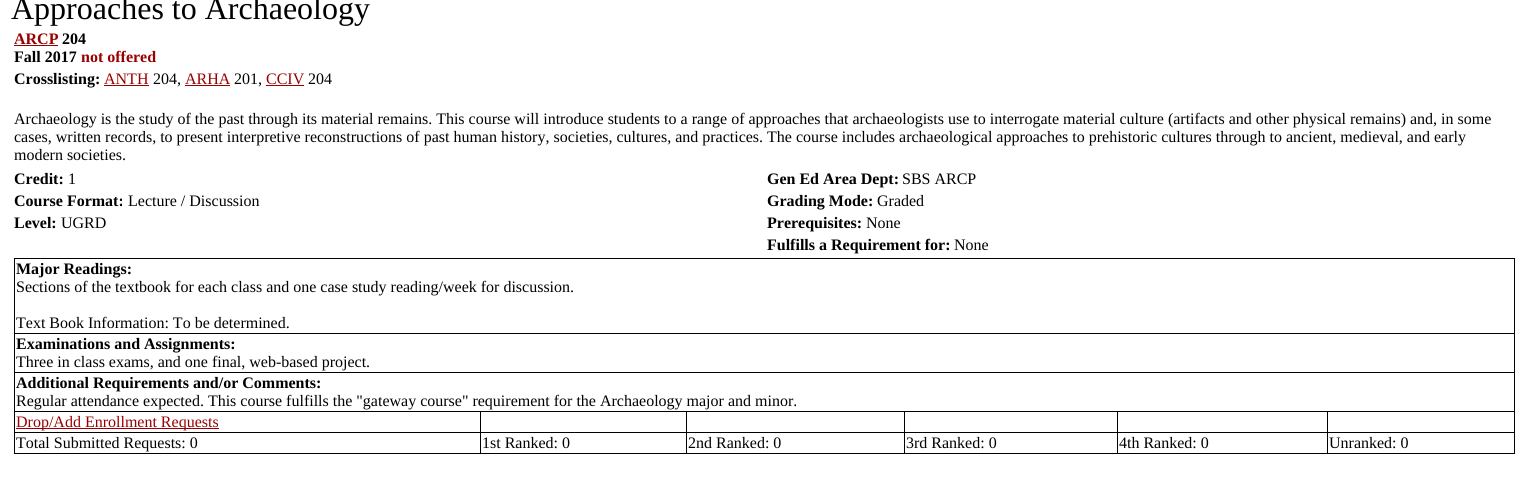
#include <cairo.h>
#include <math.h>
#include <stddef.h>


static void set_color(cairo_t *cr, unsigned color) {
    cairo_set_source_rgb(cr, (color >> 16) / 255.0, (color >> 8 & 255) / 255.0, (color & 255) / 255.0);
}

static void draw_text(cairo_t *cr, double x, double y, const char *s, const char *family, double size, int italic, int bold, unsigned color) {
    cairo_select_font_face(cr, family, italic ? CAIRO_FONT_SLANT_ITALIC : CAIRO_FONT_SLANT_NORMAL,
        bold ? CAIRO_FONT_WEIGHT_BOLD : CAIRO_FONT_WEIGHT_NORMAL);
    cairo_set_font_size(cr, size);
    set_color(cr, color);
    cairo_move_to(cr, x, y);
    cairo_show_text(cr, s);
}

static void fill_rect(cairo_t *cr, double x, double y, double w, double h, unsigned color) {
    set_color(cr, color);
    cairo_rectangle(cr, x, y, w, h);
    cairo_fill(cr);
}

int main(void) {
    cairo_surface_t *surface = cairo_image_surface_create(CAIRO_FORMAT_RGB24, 1529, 487);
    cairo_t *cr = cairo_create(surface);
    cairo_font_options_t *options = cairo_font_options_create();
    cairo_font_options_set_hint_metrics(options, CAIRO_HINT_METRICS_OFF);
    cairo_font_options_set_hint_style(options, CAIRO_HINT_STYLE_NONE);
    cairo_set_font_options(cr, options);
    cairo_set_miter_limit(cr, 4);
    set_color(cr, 0xFFFFFF);
    cairo_paint(cr);
    draw_text(cr, 11, 19, "Approaches to Archaeology", "Liberation Serif", 32, 0, 0, 0x000000);
    draw_text(cr, 14, 44, "ARCP", "Liberation Serif", 16, 0, 1, 0x990000);
    fill_rect(cr, 14, 45, 44, 1, 0x990000);
    draw_text(cr, 62, 44, "204", "Liberation Serif", 16, 0, 1, 0x000000);
    draw_text(cr, 14, 62, "Fall 2017", "Liberation Serif", 16, 0, 1, 0x000000);
    draw_text(cr, 81, 62, "not offered", "Liberation Serif", 16, 0, 1, 0x990000);
    draw_text(cr, 14, 84, "Crosslisting:", "Liberation Serif", 16, 0, 1, 0x000000);
    draw_text(cr, 104, 84, "ANTH", "Liberation Serif", 16, 0, 0, 0x990000);
    fill_rect(cr, 104, 85, 45, 1, 0x990000);
    draw_text(cr, 153, 84, "204,", "Liberation Serif", 16, 0, 0, 0x000000);
    draw_text(cr, 185, 84, "ARHA", "Liberation Serif", 16, 0, 0, 0x990000);
    fill_rect(cr, 185, 85, 45, 1, 0x990000);
    draw_text(cr, 234, 84, "201,", "Liberation Serif", 16, 0, 0, 0x000000);
    draw_text(cr, 266, 84, "CCIV", "Liberation Serif", 16, 0, 0, 0x990000);
    fill_rect(cr, 266, 85, 38, 1, 0x990000);
    draw_text(cr, 308, 84, "204", "Liberation Serif", 16, 0, 0, 0x000000);
    draw_text(cr, 14, 124, "Archaeology is the study of the past through its material remains. This course will introduce students to a range of approaches that archaeologists use to interrogate material culture (artifacts and other physical remains) and, in some", "Liberation Serif", 16, 0, 0, 0x000000);
    draw_text(cr, 14, 142, "cases, written records, to present interpretive reconstructions of past human history, societies, cultures, and practices. The course includes archaeological approaches to prehistoric cultures through to ancient, medieval, and early", "Liberation Serif", 16, 0, 0, 0x000000);
    draw_text(cr, 14, 160, "modern societies.", "Liberation Serif", 16, 0, 0, 0x000000);
    draw_text(cr, 14, 184, "Credit:", "Liberation Serif", 16, 0, 1, 0x000000);
    draw_text(cr, 68, 184, "1", "Liberation Serif", 16, 0, 0, 0x000000);
    draw_text(cr, 767, 184, "Gen Ed Area Dept:", "Liberation Serif", 16, 0, 1, 0x000000);
    draw_text(cr, 902, 184, "SBS ARCP", "Liberation Serif", 16, 0, 0, 0x000000);
    draw_text(cr, 14, 206, "Course Format:", "Liberation Serif", 16, 0, 1, 0x000000);
    draw_text(cr, 128, 206, "Lecture / Discussion", "Liberation Serif", 16, 0, 0, 0x000000);
    draw_text(cr, 767, 206, "Grading Mode:", "Liberation Serif", 16, 0, 1, 0x000000);
    draw_text(cr, 877, 206, "Graded", "Liberation Serif", 16, 0, 0, 0x000000);
    draw_text(cr, 14, 228, "Level:", "Liberation Serif", 16, 0, 1, 0x000000);
    draw_text(cr, 61, 228, "UGRD", "Liberation Serif", 16, 0, 0, 0x000000);
    draw_text(cr, 767, 228, "Prerequisites:", "Liberation Serif", 16, 0, 1, 0x000000);
    draw_text(cr, 866, 228, "None", "Liberation Serif", 16, 0, 0, 0x000000);
    draw_text(cr, 767, 250, "Fulfills a Requirement for:", "Liberation Serif", 16, 0, 1, 0x000000);
    draw_text(cr, 954, 250, "None", "Liberation Serif", 16, 0, 0, 0x000000);
    fill_rect(cr, 14, 258, 1501, 1, 0x000000);
    fill_rect(cr, 1514, 258, 1, 196, 0x000000);
    fill_rect(cr, 14, 453, 1501, 1, 0x000000);
    fill_rect(cr, 14, 258, 1, 196, 0x000000);
    draw_text(cr, 16, 274, "Major Readings:", "Liberation Serif", 16, 0, 1, 0x000000);
    draw_text(cr, 16, 292, "Sections of the textbook for each class and one case study reading/week for discussion.", "Liberation Serif", 16, 0, 0, 0x000000);
    draw_text(cr, 16, 328, "Text Book Information: To be determined.", "Liberation Serif", 16, 0, 0, 0x000000);
    fill_rect(cr, 14, 333, 1501, 1, 0x000000);
    draw_text(cr, 16, 349, "Examinations and Assignments:", "Liberation Serif", 16, 0, 1, 0x000000);
    draw_text(cr, 16, 367, "Three in class exams, and one final, web-based project.", "Liberation Serif", 16, 0, 0, 0x000000);
    fill_rect(cr, 14, 372, 1501, 1, 0x000000);
    draw_text(cr, 16, 388, "Additional Requirements and/or Comments:", "Liberation Serif", 16, 0, 1, 0x000000);
    draw_text(cr, 16, 406, "Regular attendance expected. This course fulfills the \"gateway course\" requirement for the Archaeology major and minor.", "Liberation Serif", 16, 0, 0, 0x000000);
    fill_rect(cr, 1327, 411, 188, 1, 0x000000);
    fill_rect(cr, 1327, 432, 188, 1, 0x000000);
    fill_rect(cr, 1327, 432, 1, 22, 0x000000);
    fill_rect(cr, 1117, 432, 211, 1, 0x000000);
    fill_rect(cr, 1327, 411, 1, 22, 0x000000);
    fill_rect(cr, 1117, 411, 211, 1, 0x000000);
    fill_rect(cr, 1117, 432, 1, 22, 0x000000);
    fill_rect(cr, 904, 432, 214, 1, 0x000000);
    fill_rect(cr, 1117, 411, 1, 22, 0x000000);
    fill_rect(cr, 904, 411, 214, 1, 0x000000);
    fill_rect(cr, 904, 432, 1, 22, 0x000000);
    fill_rect(cr, 686, 432, 219, 1, 0x000000);
    fill_rect(cr, 904, 411, 1, 22, 0x000000);
    fill_rect(cr, 686, 411, 219, 1, 0x000000);
    fill_rect(cr, 686, 432, 1, 22, 0x000000);
    fill_rect(cr, 480, 432, 207, 1, 0x000000);
    fill_rect(cr, 686, 411, 1, 22, 0x000000);
    fill_rect(cr, 480, 411, 207, 1, 0x000000);
    fill_rect(cr, 480, 432, 1, 22, 0x000000);
    fill_rect(cr, 14, 432, 467, 1, 0x000000);
    fill_rect(cr, 480, 411, 1, 22, 0x000000);
    fill_rect(cr, 14, 411, 467, 1, 0x000000);
    fill_rect(cr, 16, 428, 203, 1, 0x990000);
    draw_text(cr, 16, 427, "Drop/Add Enrollment Requests", "Liberation Serif", 16, 0, 0, 0x990000);
    draw_text(cr, 16, 448, "Total Submitted Requests: 0", "Liberation Serif", 16, 0, 0, 0x000000);
    draw_text(cr, 482, 448, "1st Ranked: 0", "Liberation Serif", 16, 0, 0, 0x000000);
    draw_text(cr, 688, 448, "2nd Ranked: 0", "Liberation Serif", 16, 0, 0, 0x000000);
    draw_text(cr, 906, 448, "3rd Ranked: 0", "Liberation Serif", 16, 0, 0, 0x000000);
    draw_text(cr, 1119, 448, "4th Ranked: 0", "Liberation Serif", 16, 0, 0, 0x000000);
    draw_text(cr, 1329, 448, "Unranked: 0", "Liberation Serif", 16, 0, 0, 0x000000);
    cairo_surface_write_to_png(surface, "output.png");
    cairo_font_options_destroy(options);
    cairo_destroy(cr);
    cairo_surface_destroy(surface);
    return 0;
}
